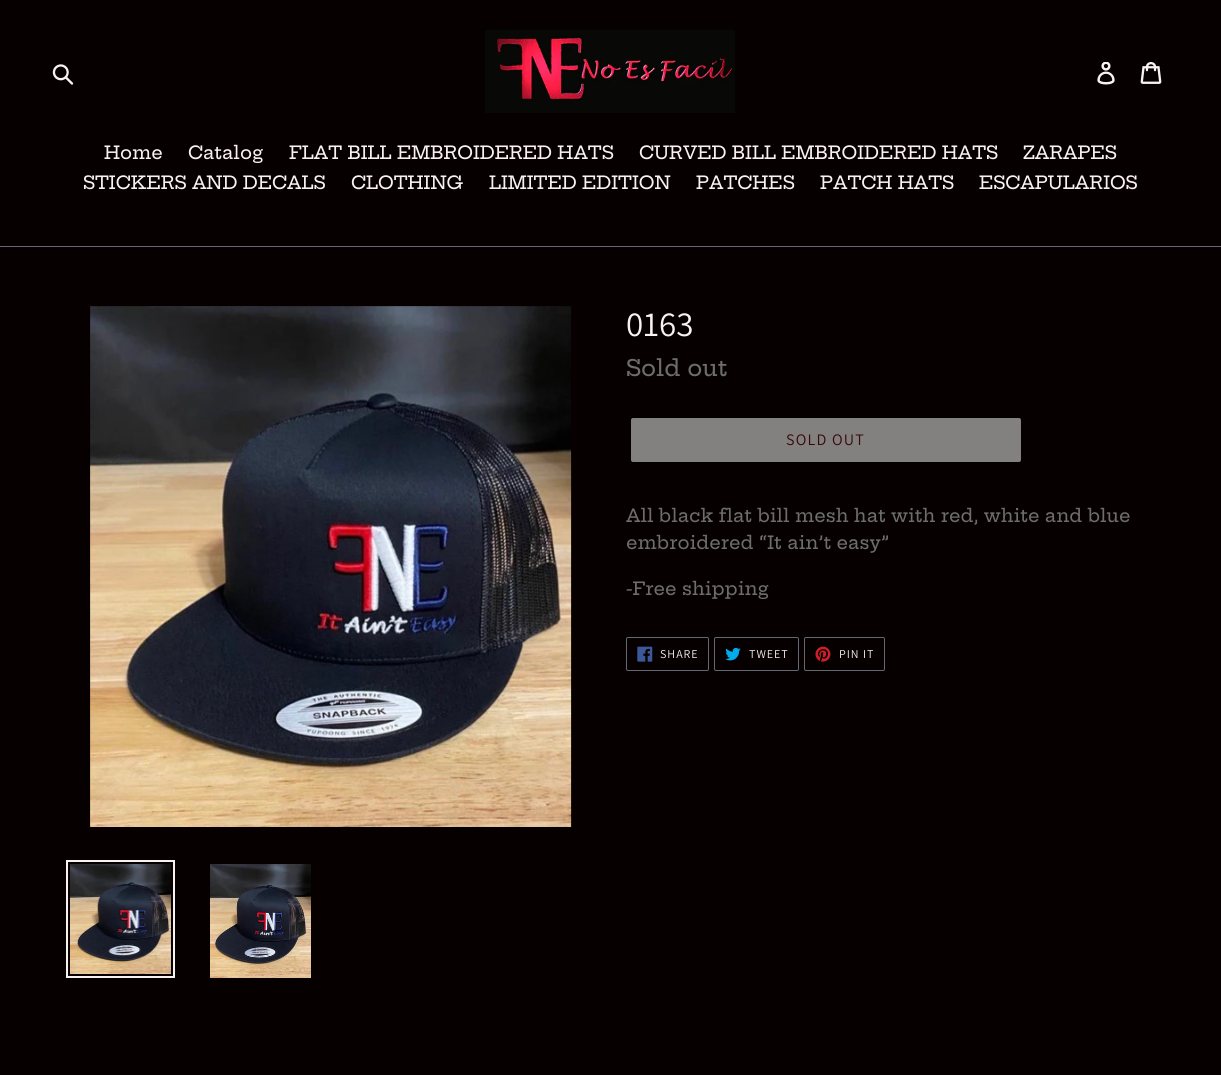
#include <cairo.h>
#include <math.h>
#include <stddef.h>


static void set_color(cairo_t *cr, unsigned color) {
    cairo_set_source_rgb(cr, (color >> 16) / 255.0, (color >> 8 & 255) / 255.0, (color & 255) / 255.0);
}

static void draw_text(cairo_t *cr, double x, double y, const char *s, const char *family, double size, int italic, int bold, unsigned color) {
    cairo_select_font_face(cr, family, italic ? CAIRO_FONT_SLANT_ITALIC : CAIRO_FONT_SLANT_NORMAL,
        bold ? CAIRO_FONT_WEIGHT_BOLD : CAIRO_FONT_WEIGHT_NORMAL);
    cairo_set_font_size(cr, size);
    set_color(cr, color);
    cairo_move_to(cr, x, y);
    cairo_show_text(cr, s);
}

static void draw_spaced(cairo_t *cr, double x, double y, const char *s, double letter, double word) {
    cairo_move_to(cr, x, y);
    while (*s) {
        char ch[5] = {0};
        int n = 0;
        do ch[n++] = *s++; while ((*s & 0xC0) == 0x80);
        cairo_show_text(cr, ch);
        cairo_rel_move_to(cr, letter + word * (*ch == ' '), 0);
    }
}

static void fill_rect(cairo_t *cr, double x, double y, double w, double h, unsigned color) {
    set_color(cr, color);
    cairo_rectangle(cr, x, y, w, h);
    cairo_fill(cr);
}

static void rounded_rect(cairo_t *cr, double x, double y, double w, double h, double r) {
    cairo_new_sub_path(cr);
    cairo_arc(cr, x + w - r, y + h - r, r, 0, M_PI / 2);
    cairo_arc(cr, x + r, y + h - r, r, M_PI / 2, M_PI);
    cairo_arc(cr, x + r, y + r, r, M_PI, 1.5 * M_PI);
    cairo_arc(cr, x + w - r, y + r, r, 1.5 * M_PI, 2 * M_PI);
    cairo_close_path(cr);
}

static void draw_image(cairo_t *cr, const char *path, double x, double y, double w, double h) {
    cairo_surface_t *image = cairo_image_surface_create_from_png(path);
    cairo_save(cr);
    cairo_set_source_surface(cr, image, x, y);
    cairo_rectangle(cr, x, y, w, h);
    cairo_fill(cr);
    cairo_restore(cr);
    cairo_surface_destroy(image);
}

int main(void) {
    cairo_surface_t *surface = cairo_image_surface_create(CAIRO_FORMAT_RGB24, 1221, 1075);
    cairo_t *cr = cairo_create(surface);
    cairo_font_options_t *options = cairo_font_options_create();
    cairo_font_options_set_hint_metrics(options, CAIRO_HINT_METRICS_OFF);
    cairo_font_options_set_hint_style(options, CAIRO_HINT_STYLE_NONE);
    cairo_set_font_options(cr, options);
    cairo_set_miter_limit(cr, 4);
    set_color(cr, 0x070000);
    cairo_paint(cr);
    draw_image(cr, "assets/img1.png", 52, 64, 22, 21);
    draw_image(cr, "assets/img2.png", 485, 30, 250, 83);
    draw_image(cr, "assets/img3.png", 1097, 62, 18, 23);
    draw_image(cr, "assets/img4.png", 1140, 62, 22, 22);
    fill_rect(cr, 0, 246, 1221, 1, 0x626771);
    draw_text(cr, 104, 159, "Home", "Hepta Slab Medium", 18, 0, 0, 0xFAF1F1);
    draw_text(cr, 188, 159, "Catalog", "Hepta Slab Medium", 18, 0, 0, 0xFAF1F1);
    draw_text(cr, 289, 159, "FLAT BILL EMBROIDERED HATS", "Hepta Slab Medium", 18, 0, 0, 0xFAF1F1);
    draw_text(cr, 639, 159, "CURVED BILL EMBROIDERED HATS", "Hepta Slab Medium", 18, 0, 0, 0xFAF1F1);
    draw_text(cr, 1023, 159, "ZARAPES", "Hepta Slab Medium", 18, 0, 0, 0xFAF1F1);
    draw_text(cr, 83, 189, "STICKERS AND DECALS", "Hepta Slab Medium", 18, 0, 0, 0xFAF1F1);
    draw_text(cr, 351, 189, "CLOTHING", "Hepta Slab Medium", 18, 0, 0, 0xFAF1F1);
    draw_text(cr, 489, 189, "LIMITED EDITION", "Hepta Slab Medium", 18, 0, 0, 0xFAF1F1);
    draw_text(cr, 696, 189, "PATCHES", "Hepta Slab Medium", 18, 0, 0, 0xFAF1F1);
    draw_text(cr, 820, 189, "PATCH HATS", "Hepta Slab Medium", 18, 0, 0, 0xFAF1F1);
    draw_text(cr, 979, 189, "ESCAPULARIOS", "Hepta Slab Medium", 18, 0, 0, 0xFAF1F1);
    draw_image(cr, "assets/img5.png", 90, 306, 482, 521);
    cairo_rectangle(cr, 67, 861, 107, 116);
    cairo_stroke(cr);
    draw_image(cr, "assets/img6.png", 70, 864, 101, 110);
    draw_image(cr, "assets/img7.png", 210, 864, 101, 114);
    draw_text(cr, 626, 336, "0163", "Assistant", 35, 0, 0, 0xFAF1F1);
    draw_text(cr, 626, 376, "Sold out", "Hepta Slab Medium", 22.5, 0, 0, 0x6D6D6D);
    set_color(cr, 0x838080);
    rounded_rect(cr, 631, 418, 390, 44, 2);
    cairo_fill(cr);
    cairo_select_font_face(cr, "Assistant", CAIRO_FONT_SLANT_NORMAL, CAIRO_FONT_WEIGHT_NORMAL);
    cairo_set_font_size(cr, 16);
    set_color(cr, 0x370909);
    draw_spaced(cr, 786, 445, "SOLD OUT", 1.25, 0);
    draw_text(cr, 626, 522, "All black flat bill mesh hat with red, white and blue", "Hepta Slab Medium", 18, 0, 0, 0x6D6D6D);
    draw_text(cr, 626, 549, "embroidered “It ain’t easy”", "Hepta Slab Medium", 18, 0, 0, 0x6D6D6D);
    draw_text(cr, 626, 595, "-Free shipping", "Hepta Slab Medium", 18, 0, 0, 0x6D6D6D);
    rounded_rect(cr, 626.5, 637.5, 82, 33, 1.5);
    set_color(cr, 0x626771);
    cairo_set_line_width(cr, 1);
    cairo_stroke(cr);
    draw_image(cr, "assets/img8.png", 637, 646, 16, 16);
    cairo_select_font_face(cr, "Assistant", CAIRO_FONT_SLANT_NORMAL, CAIRO_FONT_WEIGHT_NORMAL);
    cairo_set_font_size(cr, 12);
    set_color(cr, 0xFAF1F1);
    draw_spaced(cr, 660, 658, "SHARE", 1, 0);
    rounded_rect(cr, 714.5, 637.5, 84, 33, 1.5);
    set_color(cr, 0x626771);
    cairo_stroke(cr);
    draw_image(cr, "assets/img9.png", 725, 647, 16, 14);
    set_color(cr, 0xFAF1F1);
    draw_spaced(cr, 749, 658, "TWEET", 1, 0);
    rounded_rect(cr, 804.5, 637.5, 80, 33, 1.5);
    set_color(cr, 0x626771);
    cairo_stroke(cr);
    draw_image(cr, "assets/img10.png", 815, 646, 16, 16);
    set_color(cr, 0xFAF1F1);
    draw_spaced(cr, 839, 658, "PIN IT", 1, 0);
    cairo_surface_write_to_png(surface, "output.png");
    cairo_font_options_destroy(options);
    cairo_destroy(cr);
    cairo_surface_destroy(surface);
    return 0;
}
